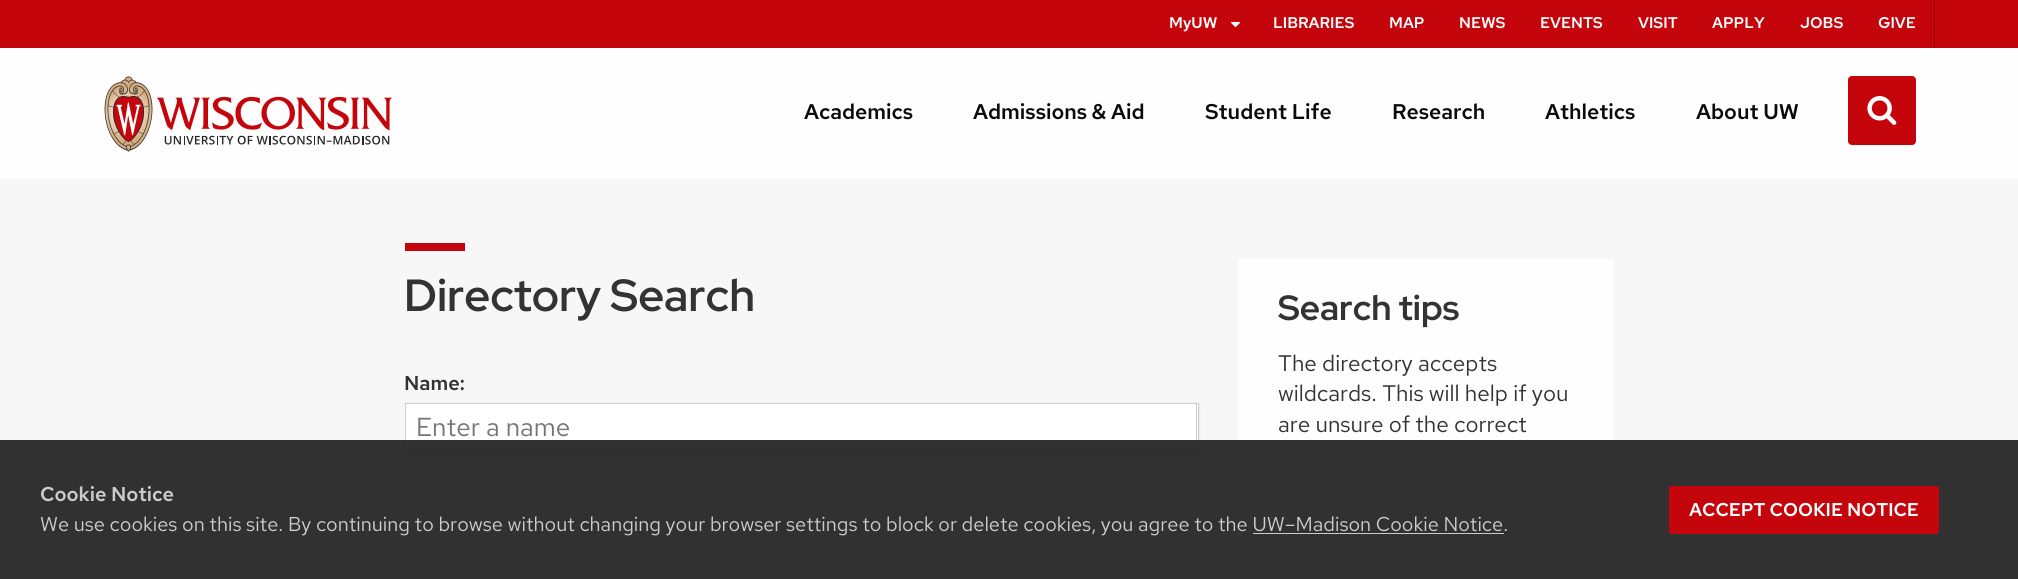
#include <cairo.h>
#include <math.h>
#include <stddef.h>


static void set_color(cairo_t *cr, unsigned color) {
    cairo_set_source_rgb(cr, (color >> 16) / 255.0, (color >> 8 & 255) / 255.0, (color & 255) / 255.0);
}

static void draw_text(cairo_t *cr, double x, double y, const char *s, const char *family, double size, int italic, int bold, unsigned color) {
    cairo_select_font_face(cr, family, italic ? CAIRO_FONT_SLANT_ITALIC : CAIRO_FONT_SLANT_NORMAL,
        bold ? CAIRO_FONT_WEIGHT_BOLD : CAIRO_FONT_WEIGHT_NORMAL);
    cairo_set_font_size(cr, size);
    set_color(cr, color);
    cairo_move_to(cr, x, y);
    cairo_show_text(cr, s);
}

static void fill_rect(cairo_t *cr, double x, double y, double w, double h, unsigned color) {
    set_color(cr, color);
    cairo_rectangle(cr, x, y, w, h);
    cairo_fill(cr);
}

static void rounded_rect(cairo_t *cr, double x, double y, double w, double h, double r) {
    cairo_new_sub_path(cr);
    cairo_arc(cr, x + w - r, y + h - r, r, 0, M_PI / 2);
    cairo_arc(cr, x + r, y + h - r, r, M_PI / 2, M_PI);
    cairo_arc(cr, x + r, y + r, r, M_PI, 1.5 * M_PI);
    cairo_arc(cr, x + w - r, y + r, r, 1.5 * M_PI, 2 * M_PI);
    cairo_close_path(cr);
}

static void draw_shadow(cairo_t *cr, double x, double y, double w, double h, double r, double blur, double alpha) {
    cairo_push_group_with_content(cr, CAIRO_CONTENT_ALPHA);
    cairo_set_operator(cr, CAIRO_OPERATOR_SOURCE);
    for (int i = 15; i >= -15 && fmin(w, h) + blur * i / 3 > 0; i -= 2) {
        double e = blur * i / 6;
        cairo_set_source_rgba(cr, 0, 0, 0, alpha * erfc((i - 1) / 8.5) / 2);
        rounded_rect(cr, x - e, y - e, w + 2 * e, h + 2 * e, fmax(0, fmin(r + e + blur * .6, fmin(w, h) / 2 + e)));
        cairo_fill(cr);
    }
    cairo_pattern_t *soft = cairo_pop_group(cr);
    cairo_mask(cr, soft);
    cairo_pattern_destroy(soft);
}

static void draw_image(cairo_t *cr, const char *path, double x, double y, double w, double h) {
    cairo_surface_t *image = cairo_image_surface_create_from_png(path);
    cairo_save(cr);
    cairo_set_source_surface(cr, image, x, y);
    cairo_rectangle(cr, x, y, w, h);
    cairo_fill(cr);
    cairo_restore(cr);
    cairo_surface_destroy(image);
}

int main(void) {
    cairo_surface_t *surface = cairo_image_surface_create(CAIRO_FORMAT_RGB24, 2018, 579);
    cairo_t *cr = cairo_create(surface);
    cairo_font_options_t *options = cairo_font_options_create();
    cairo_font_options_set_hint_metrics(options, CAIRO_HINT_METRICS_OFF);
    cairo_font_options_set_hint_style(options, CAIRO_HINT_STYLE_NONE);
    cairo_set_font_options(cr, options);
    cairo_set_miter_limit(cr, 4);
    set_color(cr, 0xF7F7F7);
    cairo_paint(cr);
    fill_rect(cr, 0, 48, 2018, 131, 0xFEFEFE);
    draw_image(cr, "assets/img1.png", 104, 76, 288, 76);
    fill_rect(cr, 0, 0, 2018, 48, 0xC5050C);
    draw_text(cr, 1169, 28, "MyUW", "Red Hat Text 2 SemiBold", 15.5, 0, 0, 0xFEFEFE);
    draw_image(cr, "assets/img2.png", 1231, 21, 9, 7);
    draw_text(cr, 1273, 28, "LIBRARIES", "Red Hat Text 2 SemiBold", 15.5, 0, 0, 0xFEFEFE);
    draw_text(cr, 1389, 28, "MAP", "Red Hat Text 2 SemiBold", 15.5, 0, 0, 0xFEFEFE);
    draw_text(cr, 1459, 28, "NEWS", "Red Hat Text 2 SemiBold", 15.5, 0, 0, 0xFEFEFE);
    draw_text(cr, 1540, 28, "EVENTS", "Red Hat Text 2 SemiBold", 15.5, 0, 0, 0xFEFEFE);
    draw_text(cr, 1638, 28, "VISIT", "Red Hat Text 2 SemiBold", 15.5, 0, 0, 0xFEFEFE);
    draw_text(cr, 1712, 28, "APPLY", "Red Hat Text 2 SemiBold", 15.5, 0, 0, 0xFEFEFE);
    draw_text(cr, 1800, 28, "JOBS", "Red Hat Text 2 SemiBold", 15.5, 0, 0, 0xFEFEFE);
    fill_rect(cr, 1934, 0, 1, 48, 0x9B0000);
    draw_text(cr, 1878, 28, "GIVE", "Red Hat Text 2 SemiBold", 15.5, 0, 0, 0xFEFEFE);
    draw_text(cr, 804, 119, "Academics", "Red Hat Text 2 SemiBold", 21.25, 0, 0, 0x0A0A0A);
    draw_text(cr, 973, 119, "Admissions & Aid", "Red Hat Text 2 SemiBold", 21.25, 0, 0, 0x0A0A0A);
    draw_text(cr, 1205, 119, "Student Life", "Red Hat Text 2 SemiBold", 21.25, 0, 0, 0x0A0A0A);
    draw_text(cr, 1392, 119, "Research", "Red Hat Text 2 SemiBold", 21.25, 0, 0, 0x0A0A0A);
    draw_text(cr, 1545, 119, "Athletics", "Red Hat Text 2 SemiBold", 21.25, 0, 0, 0x0A0A0A);
    draw_text(cr, 1696, 119, "About UW", "Red Hat Text 2 SemiBold", 21.25, 0, 0, 0x0A0A0A);
    set_color(cr, 0xC5050C);
    rounded_rect(cr, 1848, 76, 68, 69, 4);
    cairo_fill(cr);
    draw_image(cr, "assets/img3.png", 1867, 96, 30, 29);
    fill_rect(cr, 405, 243, 60, 8, 0xC5050C);
    draw_text(cr, 404, 311, "Directory Search", "Red Hat Display SemiBold", 45, 0, 0, 0x333333);
    draw_text(cr, 404, 390, "Name:", "Red Hat Text SemiBold", 20, 0, 0, 0x333333);
    set_color(cr, 0x000000);
    draw_shadow(cr, 406, 404, 793, 49, 0, 1, 0.2);
    fill_rect(cr, 406, 404, 792, 46, 0xFFFFFF);
    fill_rect(cr, 405, 403, 793, 1, 0xCFCFCF);
    fill_rect(cr, 1196, 403, 1, 48, 0xCACACA);
    fill_rect(cr, 405, 450, 793, 1, 0xCACACA);
    fill_rect(cr, 405, 403, 1, 48, 0xCFCFCF);
    draw_text(cr, 416, 436, "Enter a name", "Red Hat Text", 26, 0, 0, 0x757575);
    fill_rect(cr, 1238, 259, 376, 320, 0xFEFEFE);
    draw_text(cr, 1278, 320, "Search tips", "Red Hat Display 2 SemiBold", 35, 0, 0, 0x333333);
    draw_text(cr, 1278, 371, "The directory accepts", "Red Hat Text", 22.5, 0, 0, 0x333333);
    draw_text(cr, 1278, 401, "wildcards. This will help if you", "Red Hat Text", 22.5, 0, 0, 0x333333);
    draw_text(cr, 1278, 432, "are unsure of the correct", "Red Hat Text", 22.5, 0, 0, 0x333333);
    cairo_set_source_rgba(cr, 0.157, 0.153, 0.157, 0.95);
    cairo_rectangle(cr, 0, 440, 2018, 139);
    cairo_fill(cr);
    draw_text(cr, 40, 501, "Cookie Notice", "Red Hat Text SemiBold", 20, 0, 0, 0xCCCCCC);
    draw_text(cr, 40, 531, "We use cookies on this site. By continuing to browse without changing your browser settings to block or delete cookies, you agree to the UW–Madison Cookie Notice.", "Red Hat Text", 20, 0, 0, 0xCCCCCC);
    fill_rect(cr, 1253, 533, 251, 1, 0xCCCCCC);
    set_color(cr, 0xC5050C);
    rounded_rect(cr, 1669, 486, 270, 48, 2.5);
    cairo_fill(cr);
    draw_text(cr, 1689, 516, "ACCEPT COOKIE NOTICE", "Red Hat Text SemiBold", 18.5, 0, 0, 0xFEFEFE);
    cairo_surface_write_to_png(surface, "output.png");
    cairo_font_options_destroy(options);
    cairo_destroy(cr);
    cairo_surface_destroy(surface);
    return 0;
}
